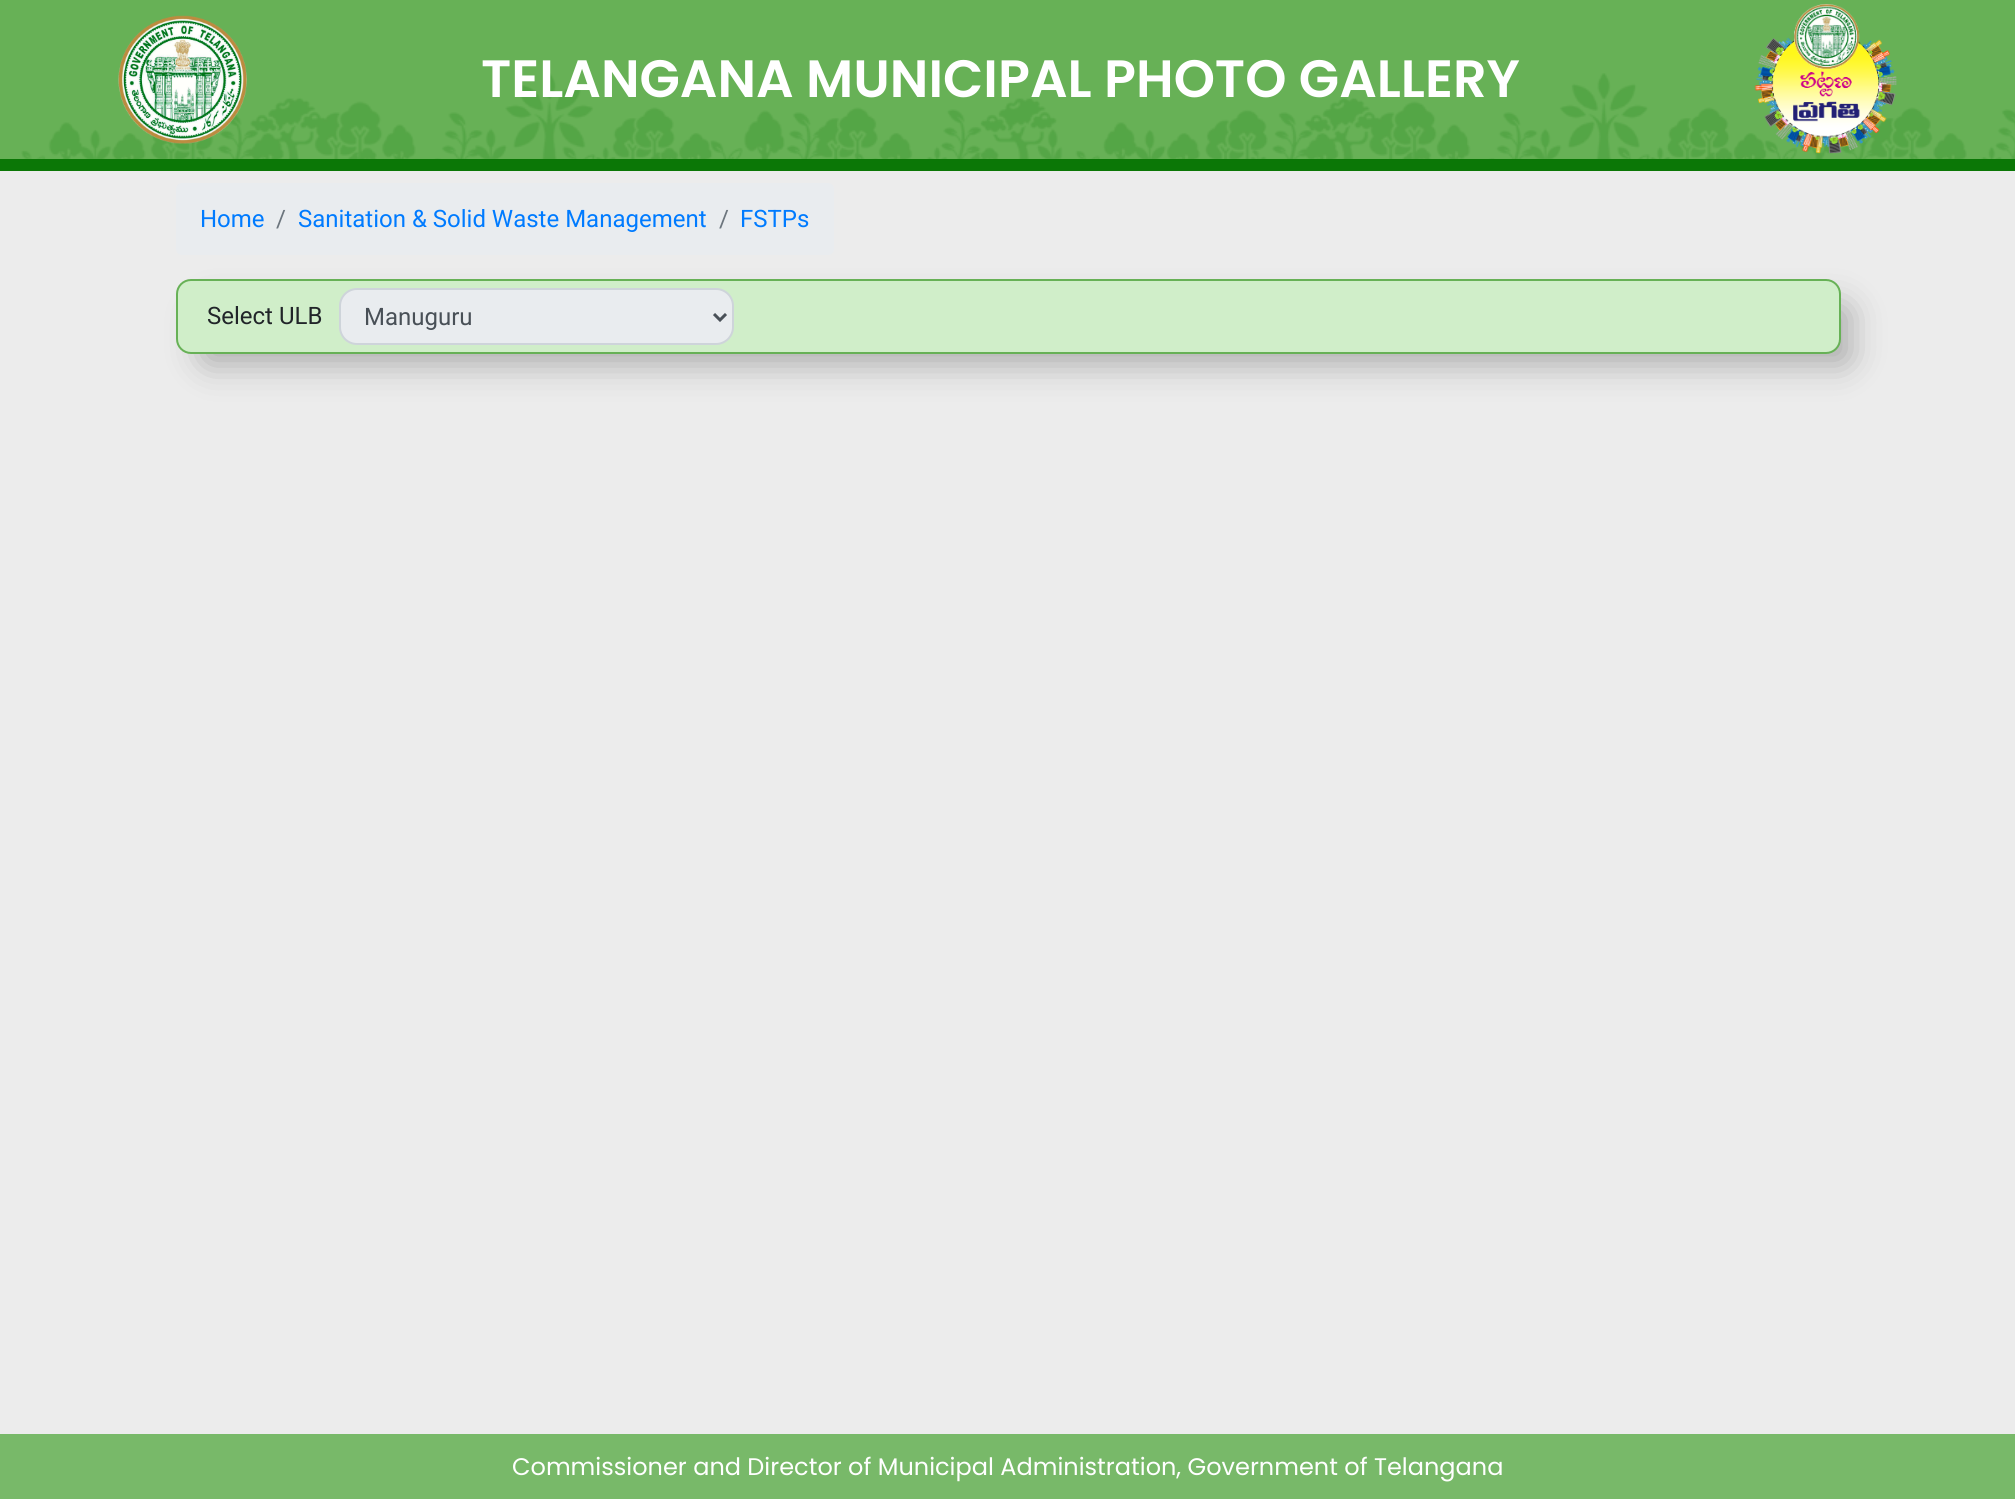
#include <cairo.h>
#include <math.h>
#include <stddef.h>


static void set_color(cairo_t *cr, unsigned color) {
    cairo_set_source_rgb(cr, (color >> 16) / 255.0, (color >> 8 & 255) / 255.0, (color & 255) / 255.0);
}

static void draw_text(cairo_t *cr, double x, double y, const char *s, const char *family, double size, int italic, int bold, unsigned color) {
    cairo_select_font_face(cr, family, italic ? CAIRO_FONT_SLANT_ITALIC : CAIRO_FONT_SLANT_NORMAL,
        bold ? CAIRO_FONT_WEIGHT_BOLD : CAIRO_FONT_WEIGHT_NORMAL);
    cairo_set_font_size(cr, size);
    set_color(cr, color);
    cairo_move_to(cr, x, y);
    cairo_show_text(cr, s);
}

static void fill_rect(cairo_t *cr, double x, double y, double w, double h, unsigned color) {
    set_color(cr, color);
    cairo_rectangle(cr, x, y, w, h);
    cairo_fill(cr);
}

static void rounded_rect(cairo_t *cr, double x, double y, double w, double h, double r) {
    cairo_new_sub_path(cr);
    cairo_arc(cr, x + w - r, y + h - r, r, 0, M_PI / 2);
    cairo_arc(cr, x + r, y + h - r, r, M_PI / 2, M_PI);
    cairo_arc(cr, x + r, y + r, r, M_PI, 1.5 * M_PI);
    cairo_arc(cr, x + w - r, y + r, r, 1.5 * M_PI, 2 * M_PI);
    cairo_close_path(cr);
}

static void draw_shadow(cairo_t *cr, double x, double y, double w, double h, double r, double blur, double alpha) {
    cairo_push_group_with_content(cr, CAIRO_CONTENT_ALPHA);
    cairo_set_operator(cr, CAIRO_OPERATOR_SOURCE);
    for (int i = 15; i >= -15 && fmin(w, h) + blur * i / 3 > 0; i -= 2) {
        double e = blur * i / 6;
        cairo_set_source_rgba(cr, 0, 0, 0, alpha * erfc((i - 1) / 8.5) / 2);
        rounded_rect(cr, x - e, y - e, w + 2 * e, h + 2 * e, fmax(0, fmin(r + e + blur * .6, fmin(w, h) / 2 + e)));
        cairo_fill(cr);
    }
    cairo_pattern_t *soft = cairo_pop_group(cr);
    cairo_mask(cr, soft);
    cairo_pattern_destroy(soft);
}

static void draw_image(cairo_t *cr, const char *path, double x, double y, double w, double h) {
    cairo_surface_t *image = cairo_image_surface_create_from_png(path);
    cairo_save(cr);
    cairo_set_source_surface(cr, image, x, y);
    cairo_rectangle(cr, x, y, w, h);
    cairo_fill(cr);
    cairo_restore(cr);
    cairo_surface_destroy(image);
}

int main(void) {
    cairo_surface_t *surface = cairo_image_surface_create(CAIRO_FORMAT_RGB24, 2015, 1499);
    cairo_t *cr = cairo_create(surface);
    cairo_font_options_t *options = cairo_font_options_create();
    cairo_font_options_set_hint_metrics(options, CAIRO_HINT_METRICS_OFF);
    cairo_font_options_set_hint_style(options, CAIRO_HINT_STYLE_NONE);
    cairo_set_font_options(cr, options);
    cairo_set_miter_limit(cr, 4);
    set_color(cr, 0xECECEC);
    cairo_paint(cr);
    fill_rect(cr, 0, 0, 2015, 159, 0x67B156);
    draw_image(cr, "assets/img1.png", 21, 73, 1994, 86);
    fill_rect(cr, 0, 159, 2015, 12, 0x0B7706);
    draw_image(cr, "assets/img2.png", 118, 15, 129, 129);
    draw_text(cr, 481, 97, "TELANGANA MUNICIPAL PHOTO GALLERY", "Poppins SemiBold", 52.5, 0, 0, 0xFFFFFF);
    draw_image(cr, "assets/img3.png", 1754, 4, 143, 150);
    set_color(cr, 0xE9ECEF);
    rounded_rect(cr, 176, 183, 658, 72, 6);
    cairo_fill(cr);
    draw_text(cr, 200, 227, "Home", "Roboto", 24, 0, 0, 0x007BFF);
    draw_text(cr, 276, 227, "/", "Roboto", 24, 0, 0, 0x6C757D);
    draw_text(cr, 298, 227, "Sanitation & Solid Waste Management", "Roboto", 24, 0, 0, 0x007BFF);
    draw_text(cr, 719, 227, "/", "Roboto", 24, 0, 0, 0x6C757D);
    draw_text(cr, 740, 227, "FSTPs", "Roboto", 24, 0, 0, 0x007BFF);
    set_color(cr, 0x000000);
    draw_shadow(cr, 201, 305, 1650, 60, 8, 17, 0.27);
    set_color(cr, 0xD0EEC9);
    rounded_rect(cr, 177, 280, 1663, 73, 14);
    cairo_fill_preserve(cr);
    set_color(cr, 0x67B156);
    cairo_stroke(cr);
    draw_text(cr, 207, 324, "Select ULB", "Roboto", 24, 0, 0, 0x212529);
    set_color(cr, 0xE9ECEF);
    rounded_rect(cr, 340, 289, 393, 55, 17);
    cairo_fill_preserve(cr);
    set_color(cr, 0xCED4DA);
    cairo_stroke(cr);
    cairo_new_path(cr);
    cairo_move_to(cr, 714, 314);
    cairo_line_to(cr, 720, 320);
    cairo_line_to(cr, 726, 314);
    set_color(cr, 0x495057);
    cairo_set_line_width(cr, 3);
    cairo_stroke(cr);
    draw_text(cr, 364, 325, "Manuguru", "Roboto", 24, 0, 0, 0x495057);
    fill_rect(cr, 0, 1434, 2015, 65, 0x78B969);
    draw_text(cr, 512, 1475, "Commissioner and Director of Municipal Administration, Government of Telangana", "Poppins", 24, 0, 0, 0xFFFFFF);
    cairo_surface_write_to_png(surface, "output.png");
    cairo_font_options_destroy(options);
    cairo_destroy(cr);
    cairo_surface_destroy(surface);
    return 0;
}
